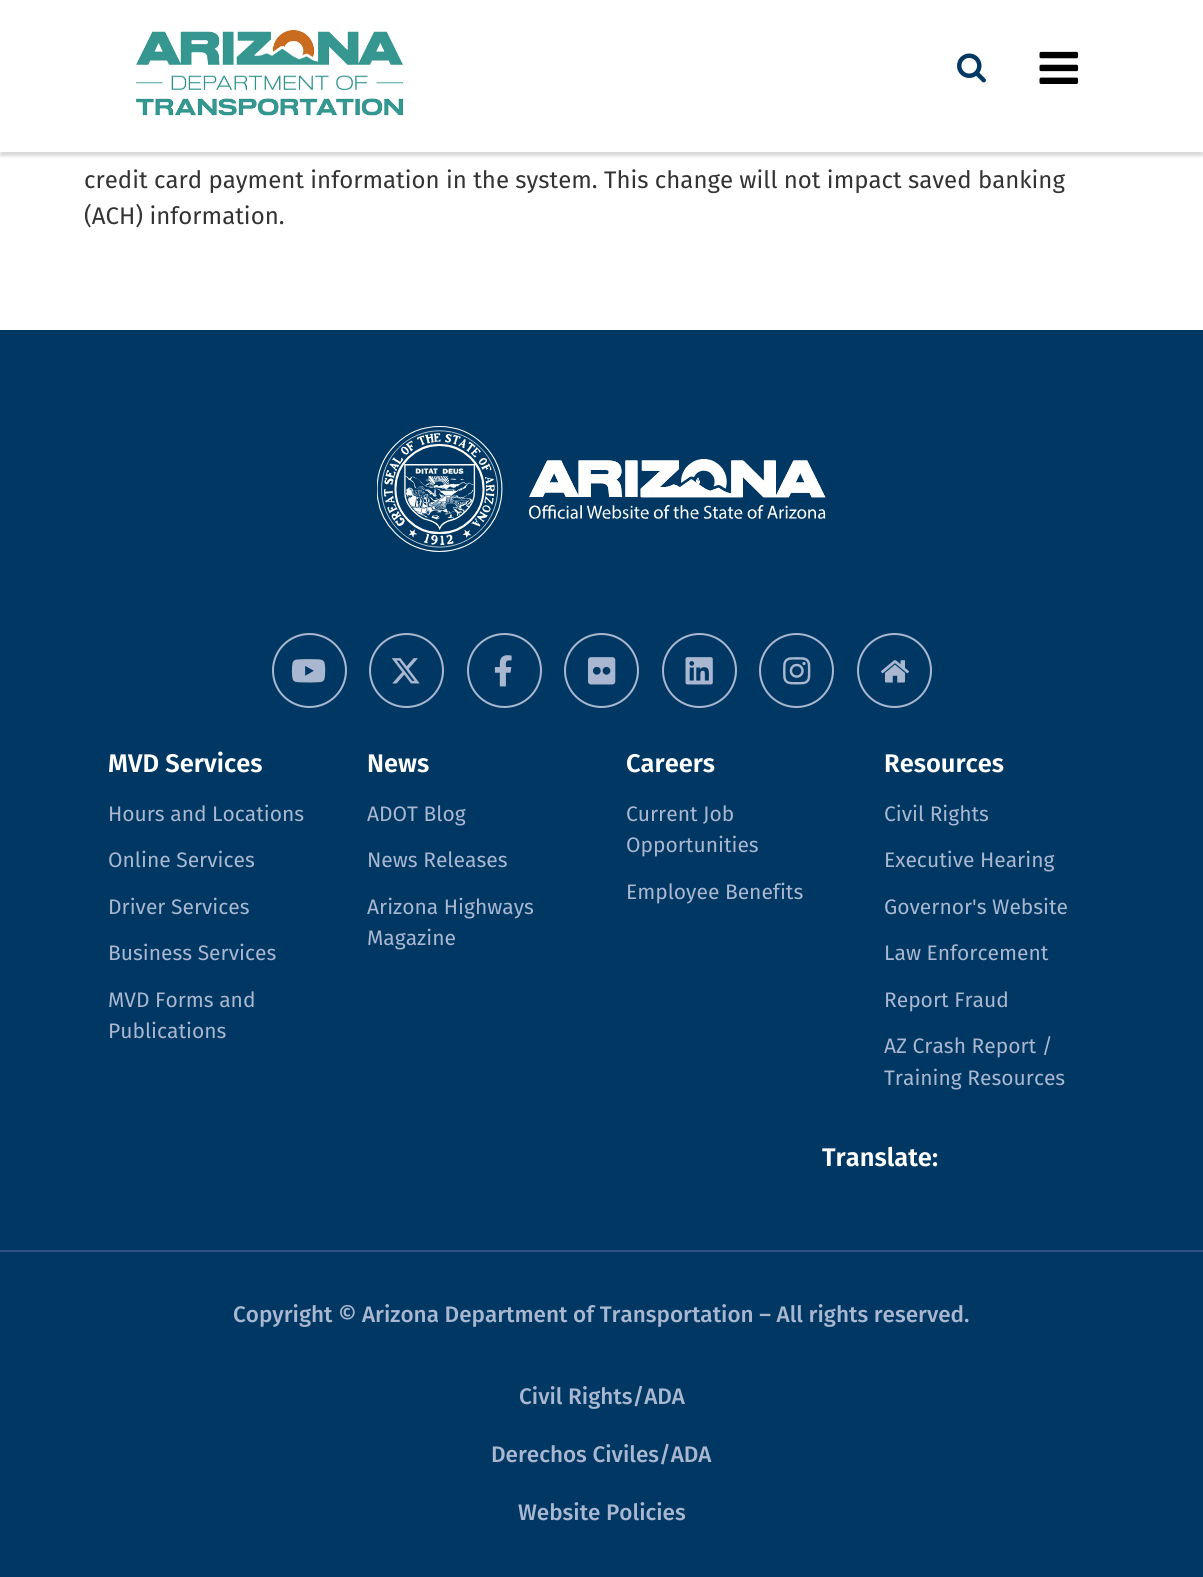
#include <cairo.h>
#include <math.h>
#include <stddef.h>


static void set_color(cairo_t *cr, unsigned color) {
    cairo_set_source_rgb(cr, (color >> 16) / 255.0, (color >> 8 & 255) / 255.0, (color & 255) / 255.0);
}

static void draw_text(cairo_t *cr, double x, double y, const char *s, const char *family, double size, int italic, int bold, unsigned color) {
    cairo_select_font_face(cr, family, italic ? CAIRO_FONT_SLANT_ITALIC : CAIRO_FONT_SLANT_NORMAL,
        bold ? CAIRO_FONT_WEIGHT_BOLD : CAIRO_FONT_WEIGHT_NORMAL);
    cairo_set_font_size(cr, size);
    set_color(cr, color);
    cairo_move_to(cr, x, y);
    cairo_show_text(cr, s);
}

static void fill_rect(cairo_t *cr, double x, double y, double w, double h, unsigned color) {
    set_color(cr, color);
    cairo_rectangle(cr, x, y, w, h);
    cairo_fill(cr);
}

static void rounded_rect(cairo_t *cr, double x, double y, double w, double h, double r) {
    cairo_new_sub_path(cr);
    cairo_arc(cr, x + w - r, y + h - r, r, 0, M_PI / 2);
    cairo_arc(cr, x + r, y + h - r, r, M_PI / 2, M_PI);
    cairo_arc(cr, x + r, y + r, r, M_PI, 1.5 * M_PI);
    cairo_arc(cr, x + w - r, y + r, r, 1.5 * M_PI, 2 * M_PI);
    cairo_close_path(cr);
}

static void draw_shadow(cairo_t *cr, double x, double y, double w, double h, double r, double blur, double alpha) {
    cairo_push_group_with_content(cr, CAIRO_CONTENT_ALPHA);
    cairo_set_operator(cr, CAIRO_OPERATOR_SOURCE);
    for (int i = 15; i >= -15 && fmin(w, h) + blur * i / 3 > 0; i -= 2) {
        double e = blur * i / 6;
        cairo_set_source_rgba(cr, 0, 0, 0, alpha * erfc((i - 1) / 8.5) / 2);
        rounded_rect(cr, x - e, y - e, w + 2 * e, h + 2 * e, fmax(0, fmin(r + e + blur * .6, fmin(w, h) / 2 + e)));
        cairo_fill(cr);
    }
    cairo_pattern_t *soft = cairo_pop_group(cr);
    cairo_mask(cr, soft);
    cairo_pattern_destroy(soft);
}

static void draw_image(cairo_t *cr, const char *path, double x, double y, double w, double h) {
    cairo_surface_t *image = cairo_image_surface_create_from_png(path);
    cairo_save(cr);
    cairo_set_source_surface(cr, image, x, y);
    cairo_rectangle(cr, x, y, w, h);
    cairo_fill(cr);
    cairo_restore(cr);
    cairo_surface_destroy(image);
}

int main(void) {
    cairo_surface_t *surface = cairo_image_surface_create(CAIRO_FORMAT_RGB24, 1203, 1577);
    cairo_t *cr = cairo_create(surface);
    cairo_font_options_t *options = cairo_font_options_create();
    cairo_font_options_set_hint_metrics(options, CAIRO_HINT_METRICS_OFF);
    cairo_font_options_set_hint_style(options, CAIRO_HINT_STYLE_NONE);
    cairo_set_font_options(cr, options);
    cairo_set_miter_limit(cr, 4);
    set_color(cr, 0xFFFFFF);
    cairo_paint(cr);
    set_color(cr, 0x000000);
    draw_shadow(cr, 0, 5, 1203, 151, 0, 1.5, 0.15);
    fill_rect(cr, 0, 3, 1203, 149, 0xFFFFFF);
    draw_image(cr, "assets/img1.png", 136, 30, 268, 86);
    draw_image(cr, "assets/img2.png", 957, 53, 29, 30);
    draw_image(cr, "assets/img3.png", 1039, 51, 40, 33);
    draw_text(cr, 84, 188, "credit card payment information in the system. This change will not impact saved banking", "Fira Sans", 24, 0, 0, 0x333333);
    draw_text(cr, 84, 224, "(ACH) information.", "Fira Sans", 24, 0, 0, 0x333333);
    fill_rect(cr, 0, 330, 1203, 1247, 0x003863);
    draw_image(cr, "assets/img4.png", 377, 426, 449, 126);
    cairo_arc(cr, 309.5, 670.5, 36.5, 0, 2 * M_PI);
    set_color(cr, 0xA9B7D1);
    cairo_stroke(cr);
    draw_image(cr, "assets/img5.png", 291, 659, 35, 24);
    cairo_arc(cr, 406.5, 670.5, 36.5, 0, 2 * M_PI);
    cairo_stroke(cr);
    draw_image(cr, "assets/img6.png", 391, 658, 29, 26);
    cairo_arc(cr, 504.5, 670.5, 36.5, 0, 2 * M_PI);
    cairo_stroke(cr);
    draw_image(cr, "assets/img7.png", 494, 655, 18, 32);
    cairo_arc(cr, 601.5, 670.5, 36.5, 0, 2 * M_PI);
    cairo_stroke(cr);
    draw_image(cr, "assets/img8.png", 588, 657, 28, 28);
    cairo_arc(cr, 699.5, 670.5, 36.5, 0, 2 * M_PI);
    cairo_stroke(cr);
    draw_image(cr, "assets/img9.png", 685, 657, 28, 28);
    cairo_arc(cr, 796.5, 670.5, 36.5, 0, 2 * M_PI);
    cairo_stroke(cr);
    draw_image(cr, "assets/img10.png", 783, 657, 28, 28);
    cairo_arc(cr, 894.5, 670.5, 36.5, 0, 2 * M_PI);
    cairo_stroke(cr);
    draw_image(cr, "assets/img11.png", 881, 660, 28, 23);
    draw_text(cr, 108, 772, "MVD Services", "Fira Sans SemiBold", 25.5, 0, 0, 0xFFFFFF);
    draw_text(cr, 108, 821, "Hours and Locations", "Fira Sans", 21, 0, 0, 0xA9B7D1);
    draw_text(cr, 108, 867, "Online Services", "Fira Sans", 21, 0, 0, 0xA9B7D1);
    draw_text(cr, 108, 914, "Driver Services", "Fira Sans", 21, 0, 0, 0xA9B7D1);
    draw_text(cr, 108, 960, "Business Services", "Fira Sans", 21, 0, 0, 0xA9B7D1);
    draw_text(cr, 108, 1007, "MVD Forms and", "Fira Sans", 21, 0, 0, 0xA9B7D1);
    draw_text(cr, 108, 1038, "Publications", "Fira Sans", 21, 0, 0, 0xA9B7D1);
    draw_text(cr, 367, 772, "News", "Fira Sans SemiBold", 25.5, 0, 0, 0xFFFFFF);
    draw_text(cr, 367, 821, "ADOT Blog", "Fira Sans", 21, 0, 0, 0xA9B7D1);
    draw_text(cr, 367, 867, "News Releases", "Fira Sans", 21, 0, 0, 0xA9B7D1);
    draw_text(cr, 367, 914, "Arizona Highways", "Fira Sans", 21, 0, 0, 0xA9B7D1);
    draw_text(cr, 367, 945, "Magazine", "Fira Sans", 21, 0, 0, 0xA9B7D1);
    draw_text(cr, 626, 772, "Careers", "Fira Sans SemiBold", 25.5, 0, 0, 0xFFFFFF);
    draw_text(cr, 626, 821, "Current Job", "Fira Sans", 21, 0, 0, 0xA9B7D1);
    draw_text(cr, 626, 852, "Opportunities", "Fira Sans", 21, 0, 0, 0xA9B7D1);
    draw_text(cr, 626, 899, "Employee Benefits", "Fira Sans", 21, 0, 0, 0xA9B7D1);
    draw_text(cr, 884, 772, "Resources", "Fira Sans SemiBold", 25.5, 0, 0, 0xFFFFFF);
    draw_text(cr, 884, 821, "Civil Rights", "Fira Sans", 21, 0, 0, 0xA9B7D1);
    draw_text(cr, 884, 867, "Executive Hearing", "Fira Sans", 21, 0, 0, 0xA9B7D1);
    draw_text(cr, 884, 914, "Governor's Website", "Fira Sans", 21, 0, 0, 0xA9B7D1);
    draw_text(cr, 884, 960, "Law Enforcement", "Fira Sans", 21, 0, 0, 0xA9B7D1);
    draw_text(cr, 884, 1007, "Report Fraud", "Fira Sans", 21, 0, 0, 0xA9B7D1);
    draw_text(cr, 884, 1053, "AZ Crash Report /", "Fira Sans", 21, 0, 0, 0xA9B7D1);
    draw_text(cr, 884, 1085, "Training Resources", "Fira Sans", 21, 0, 0, 0xA9B7D1);
    draw_text(cr, 822, 1166, "Translate:", "Fira Sans SemiBold", 25.5, 0, 0, 0xFFFFFF);
    fill_rect(cr, 0, 1250, 1203, 2, 0x345086);
    draw_text(cr, 233, 1322, "Copyright © Arizona Department of Transportation – All rights reserved.", "Fira Sans Medium", 22.5, 0, 0, 0xA9B7D1);
    draw_text(cr, 519, 1404, "Civil Rights/ADA", "Fira Sans Medium", 22.5, 0, 0, 0xA9B7D1);
    draw_text(cr, 491, 1462, "Derechos Civiles/ADA", "Fira Sans Medium", 22.5, 0, 0, 0xA9B7D1);
    draw_text(cr, 518, 1520, "Website Policies", "Fira Sans Medium", 22.5, 0, 0, 0xA9B7D1);
    cairo_surface_write_to_png(surface, "output.png");
    cairo_font_options_destroy(options);
    cairo_destroy(cr);
    cairo_surface_destroy(surface);
    return 0;
}
